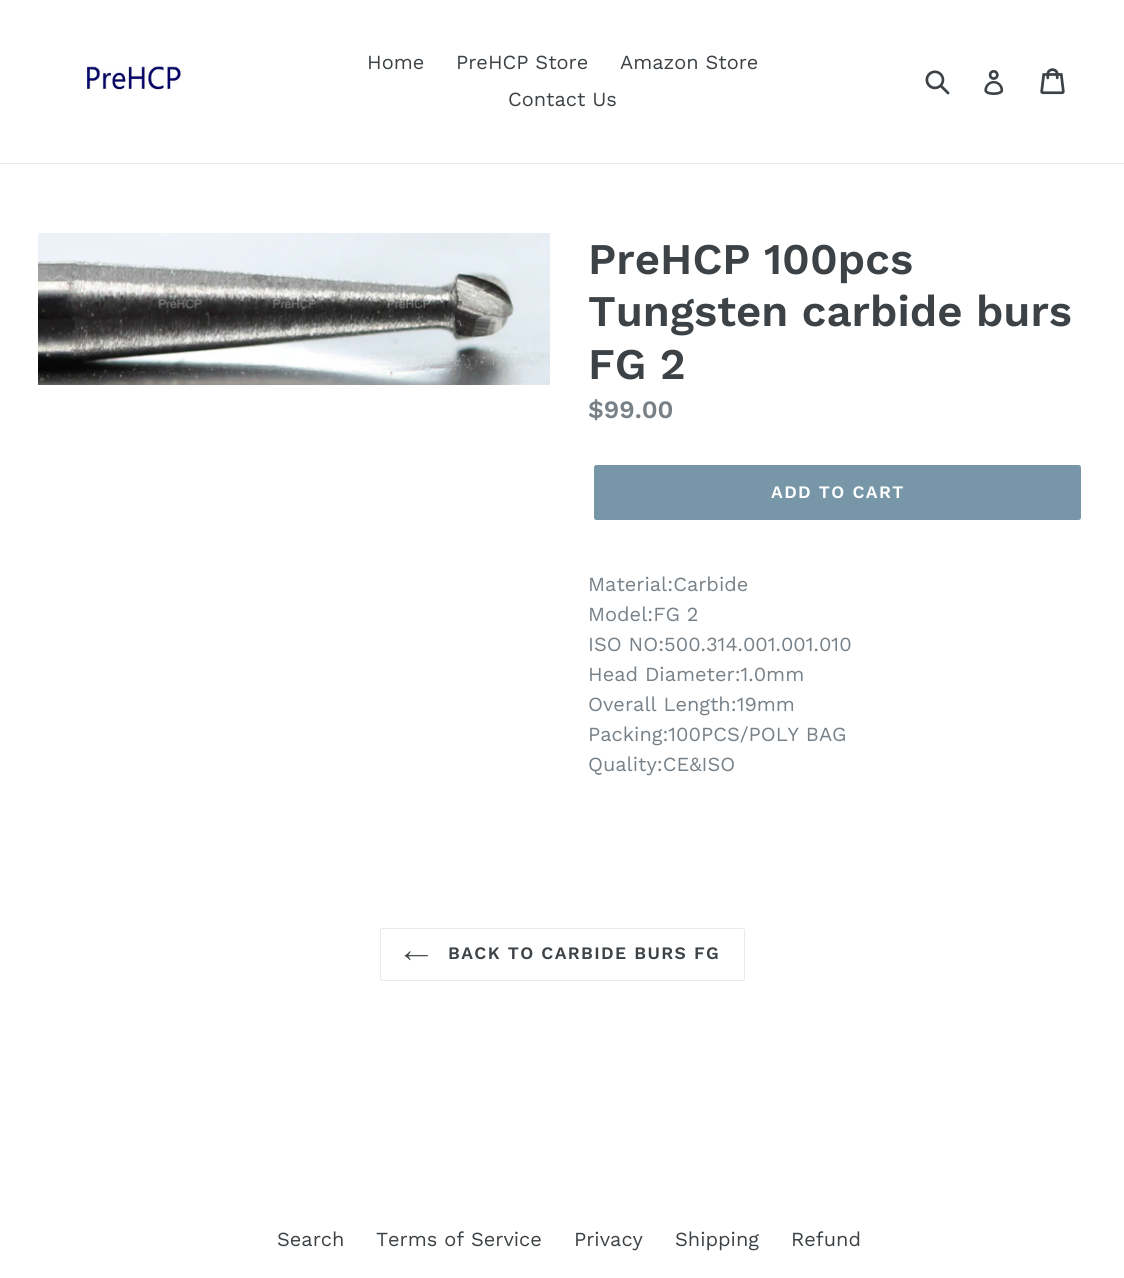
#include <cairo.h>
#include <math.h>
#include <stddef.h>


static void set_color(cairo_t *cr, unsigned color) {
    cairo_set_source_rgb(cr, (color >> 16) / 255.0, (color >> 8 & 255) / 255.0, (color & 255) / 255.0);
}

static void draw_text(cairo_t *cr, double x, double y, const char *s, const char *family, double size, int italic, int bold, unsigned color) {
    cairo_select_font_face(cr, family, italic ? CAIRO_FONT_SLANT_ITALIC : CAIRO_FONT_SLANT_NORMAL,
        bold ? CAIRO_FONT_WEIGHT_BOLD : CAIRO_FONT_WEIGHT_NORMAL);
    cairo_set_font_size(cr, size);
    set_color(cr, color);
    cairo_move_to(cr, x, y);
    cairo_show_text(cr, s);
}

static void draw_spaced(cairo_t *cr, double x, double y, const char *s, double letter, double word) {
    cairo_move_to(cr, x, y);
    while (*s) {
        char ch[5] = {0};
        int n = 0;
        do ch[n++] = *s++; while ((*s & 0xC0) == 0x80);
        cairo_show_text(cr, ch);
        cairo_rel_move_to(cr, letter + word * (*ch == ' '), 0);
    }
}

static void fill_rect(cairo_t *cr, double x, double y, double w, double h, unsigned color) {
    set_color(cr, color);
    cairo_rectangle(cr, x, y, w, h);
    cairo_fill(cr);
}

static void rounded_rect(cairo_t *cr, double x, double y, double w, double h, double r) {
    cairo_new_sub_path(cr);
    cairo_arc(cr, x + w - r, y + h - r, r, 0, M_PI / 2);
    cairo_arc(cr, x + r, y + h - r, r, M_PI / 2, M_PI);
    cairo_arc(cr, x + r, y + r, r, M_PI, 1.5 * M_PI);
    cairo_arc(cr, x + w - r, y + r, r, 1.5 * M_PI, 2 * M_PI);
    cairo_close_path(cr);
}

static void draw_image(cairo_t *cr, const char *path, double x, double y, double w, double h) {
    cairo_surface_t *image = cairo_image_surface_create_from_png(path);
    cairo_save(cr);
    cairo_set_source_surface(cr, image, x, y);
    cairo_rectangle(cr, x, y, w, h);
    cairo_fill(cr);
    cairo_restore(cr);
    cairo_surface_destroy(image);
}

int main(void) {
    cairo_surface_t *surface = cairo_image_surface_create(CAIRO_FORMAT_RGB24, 1124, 1278);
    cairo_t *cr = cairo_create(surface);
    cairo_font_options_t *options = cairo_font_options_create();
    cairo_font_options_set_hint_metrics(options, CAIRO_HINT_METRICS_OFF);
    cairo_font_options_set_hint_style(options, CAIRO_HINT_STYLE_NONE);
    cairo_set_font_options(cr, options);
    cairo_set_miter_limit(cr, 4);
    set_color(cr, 0xFFFFFF);
    cairo_paint(cr);
    fill_rect(cr, 0, 163, 1124, 1, 0xE8E9EB);
    draw_image(cr, "assets/img1.png", 86, 65, 99, 26);
    draw_text(cr, 367, 69, "Home", "Work Sans", 20, 0, 0, 0x3D4246);
    draw_text(cr, 456, 69, "PreHCP Store", "Work Sans", 20, 0, 0, 0x3D4246);
    draw_text(cr, 620, 69, "Amazon Store", "Work Sans", 20, 0, 0, 0x3D4246);
    draw_text(cr, 508, 106, "Contact Us", "Work Sans", 20, 0, 0, 0x3D4246);
    draw_image(cr, "assets/img2.png", 925, 70, 25, 25);
    draw_image(cr, "assets/img3.png", 984, 70, 20, 25);
    draw_image(cr, "assets/img4.png", 1040, 68, 25, 27);
    draw_image(cr, "assets/img5.png", 38, 233, 512, 152);
    draw_text(cr, 588, 274, "PreHCP 100pcs", "Work Sans SemiBold", 43.75, 0, 0, 0x3D4246);
    draw_text(cr, 588, 326, "Tungsten carbide burs", "Work Sans SemiBold", 43.75, 0, 0, 0x3D4246);
    draw_text(cr, 588, 379, "FG 2", "Work Sans SemiBold", 43.75, 0, 0, 0x3D4246);
    draw_text(cr, 588, 418, "$99.00", "Work Sans SemiBold", 25, 0, 0, 0x788188);
    set_color(cr, 0x7796A8);
    rounded_rect(cr, 594, 465, 487, 55, 2.5);
    cairo_fill(cr);
    cairo_set_font_size(cr, 17.5);
    set_color(cr, 0xFFFFFF);
    draw_spaced(cr, 771, 498, "ADD TO CART", 1.4, 0);
    draw_text(cr, 588, 591, "Material:Carbide", "Work Sans", 20, 0, 0, 0x788188);
    draw_text(cr, 588, 621, "Model:FG 2", "Work Sans", 20, 0, 0, 0x788188);
    draw_text(cr, 588, 651, "ISO NO:500.314.001.001.010", "Work Sans", 20, 0, 0, 0x788188);
    draw_text(cr, 588, 681, "Head Diameter:1.0mm", "Work Sans", 20, 0, 0, 0x788188);
    draw_text(cr, 588, 711, "Overall Length:19mm", "Work Sans", 20, 0, 0, 0x788188);
    draw_text(cr, 588, 741, "Packing:100PCS/POLY BAG", "Work Sans", 20, 0, 0, 0x788188);
    draw_text(cr, 588, 771, "Quality:CE&ISO", "Work Sans", 20, 0, 0, 0x788188);
    rounded_rect(cr, 380.5, 928.5, 364, 52, 2);
    set_color(cr, 0xE8E9EB);
    cairo_set_line_width(cr, 1);
    cairo_stroke(cr);
    draw_image(cr, "assets/img6.png", 404, 951, 24, 10);
    cairo_select_font_face(cr, "Work Sans SemiBold", CAIRO_FONT_SLANT_NORMAL, CAIRO_FONT_WEIGHT_NORMAL);
    cairo_set_font_size(cr, 17.5);
    set_color(cr, 0x3D4246);
    draw_spaced(cr, 448, 959, "BACK TO CARBIDE BURS FG", 1.4, 0);
    draw_text(cr, 277, 1246, "Search", "Work Sans", 20, 0, 0, 0x3D4246);
    draw_text(cr, 376, 1246, "Terms of Service", "Work Sans", 20, 0, 0, 0x3D4246);
    draw_text(cr, 574, 1246, "Privacy", "Work Sans", 20, 0, 0, 0x3D4246);
    draw_text(cr, 675, 1246, "Shipping", "Work Sans", 20, 0, 0, 0x3D4246);
    draw_text(cr, 791, 1246, "Refund", "Work Sans", 20, 0, 0, 0x3D4246);
    cairo_surface_write_to_png(surface, "output.png");
    cairo_font_options_destroy(options);
    cairo_destroy(cr);
    cairo_surface_destroy(surface);
    return 0;
}
